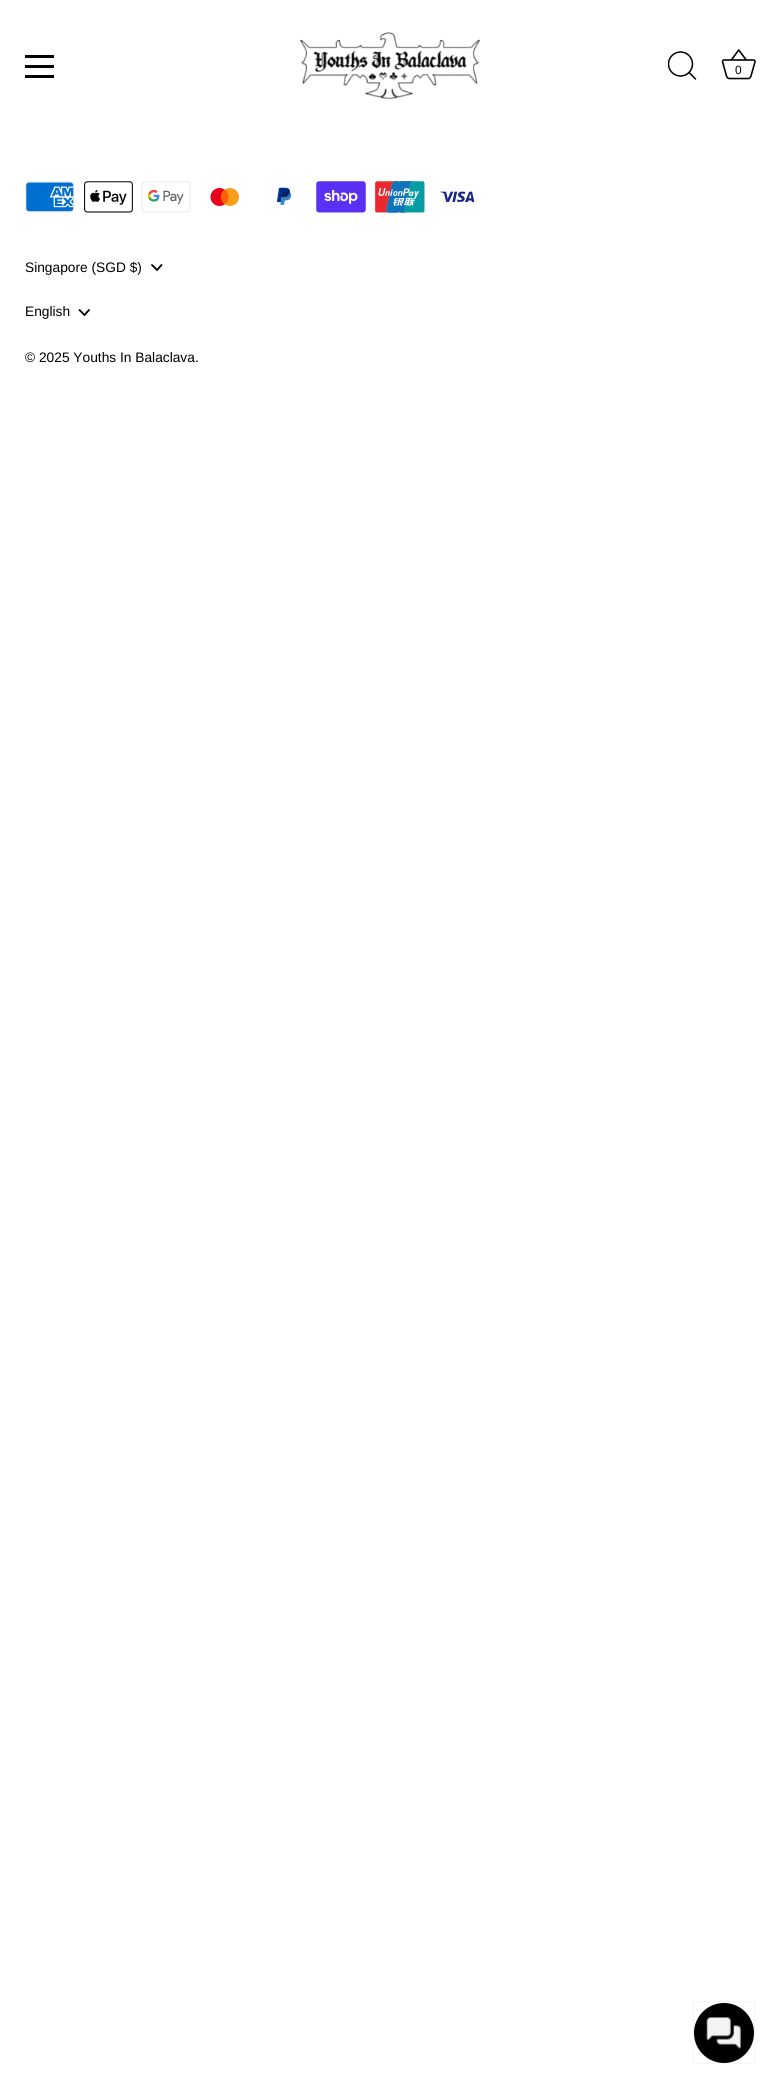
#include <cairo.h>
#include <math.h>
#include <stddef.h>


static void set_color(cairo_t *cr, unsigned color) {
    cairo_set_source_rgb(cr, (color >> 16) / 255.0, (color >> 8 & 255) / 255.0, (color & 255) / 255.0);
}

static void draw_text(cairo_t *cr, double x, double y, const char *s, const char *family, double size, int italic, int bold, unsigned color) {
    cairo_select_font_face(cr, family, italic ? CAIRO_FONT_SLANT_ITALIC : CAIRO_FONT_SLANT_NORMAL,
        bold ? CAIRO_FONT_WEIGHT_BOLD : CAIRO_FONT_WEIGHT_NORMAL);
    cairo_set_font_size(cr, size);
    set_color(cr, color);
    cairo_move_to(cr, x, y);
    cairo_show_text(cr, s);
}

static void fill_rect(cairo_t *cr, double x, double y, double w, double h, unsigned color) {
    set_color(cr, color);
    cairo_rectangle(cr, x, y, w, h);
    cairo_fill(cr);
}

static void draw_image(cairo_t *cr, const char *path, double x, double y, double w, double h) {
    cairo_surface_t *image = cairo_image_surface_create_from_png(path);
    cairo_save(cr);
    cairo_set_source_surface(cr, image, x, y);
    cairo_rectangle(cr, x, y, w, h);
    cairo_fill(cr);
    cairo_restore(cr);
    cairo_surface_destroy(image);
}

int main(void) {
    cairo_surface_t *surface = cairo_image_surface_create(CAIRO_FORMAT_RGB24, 778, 2087);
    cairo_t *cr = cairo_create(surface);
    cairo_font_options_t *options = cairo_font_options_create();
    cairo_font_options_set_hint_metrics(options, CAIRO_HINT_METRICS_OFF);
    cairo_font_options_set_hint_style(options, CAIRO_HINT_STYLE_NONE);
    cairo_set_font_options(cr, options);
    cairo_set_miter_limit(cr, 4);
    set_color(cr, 0xFFFFFF);
    cairo_paint(cr);
    fill_rect(cr, 25, 55, 29, 3, 0x000000);
    fill_rect(cr, 25, 65, 29, 3, 0x000000);
    fill_rect(cr, 25, 75, 29, 3, 0x000000);
    draw_image(cr, "assets/img1.png", 299, 32, 182, 68);
    cairo_save(cr);
    cairo_rectangle(cr, 668, 51, 30, 30);
    cairo_clip(cr);
    cairo_arc(cr, 680.5, 64, 12, 0, 2 * M_PI);
    cairo_set_line_width(cr, 1.5);
    cairo_stroke(cr);
    cairo_restore(cr);
    cairo_new_path(cr);
    cairo_move_to(cr, 695.5, 79);
    cairo_line_to(cr, 689, 72.5);
    cairo_set_line_width(cr, 1.5);
    cairo_set_line_cap(cr, CAIRO_LINE_CAP_ROUND);
    cairo_set_line_join(cr, CAIRO_LINE_JOIN_ROUND);
    cairo_stroke(cr);
    draw_image(cr, "assets/img2.png", 721, 49, 35, 31);
    draw_text(cr, 735, 74, "0", "Liberation Sans", 12, 0, 0, 0x000000);
    draw_image(cr, "assets/img3.png", 25, 181, 50, 32);
    draw_image(cr, "assets/img4.png", 84, 181, 49, 32);
    draw_image(cr, "assets/img5.png", 141, 181, 50, 32);
    draw_image(cr, "assets/img6.png", 210, 188, 29, 18);
    draw_image(cr, "assets/img7.png", 277, 187, 15, 18);
    draw_image(cr, "assets/img8.png", 316, 181, 50, 32);
    draw_image(cr, "assets/img9.png", 375, 181, 50, 32);
    draw_image(cr, "assets/img10.png", 440, 191, 35, 12);
    draw_text(cr, 25, 272, "Singapore (SGD $)", "Liberation Sans", 13.75, 0, 0, 0x000000);
    cairo_new_path(cr);
    cairo_move_to(cr, 152, 265);
    cairo_line_to(cr, 157, 270);
    cairo_line_to(cr, 161.5, 265);
    cairo_set_line_width(cr, 1.8);
    cairo_set_line_join(cr, CAIRO_LINE_JOIN_MITER);
    cairo_stroke(cr);
    draw_text(cr, 25, 316, "English", "Liberation Sans", 13.75, 0, 0, 0x000000);
    cairo_new_path(cr);
    cairo_move_to(cr, 79.5, 310);
    cairo_line_to(cr, 84.5, 315);
    cairo_line_to(cr, 89, 310);
    cairo_stroke(cr);
    draw_text(cr, 25, 362, "© 2025 Youths In Balaclava.", "Liberation Sans", 13.75, 0, 0, 0x000000);
    cairo_rectangle(cr, 693.5, 2001.5, 61, 62);
    cairo_set_source_rgba(cr, 0.086, 0.102, 0.118, 0.04);
    cairo_set_line_width(cr, 1);
    cairo_set_line_cap(cr, CAIRO_LINE_CAP_BUTT);
    cairo_stroke(cr);
    set_color(cr, 0x000000);
    cairo_arc(cr, 724, 2033, 30, 0, 2 * M_PI);
    cairo_fill(cr);
    draw_image(cr, "assets/img11.png", 706, 2017, 35, 32);
    cairo_surface_write_to_png(surface, "output.png");
    cairo_font_options_destroy(options);
    cairo_destroy(cr);
    cairo_surface_destroy(surface);
    return 0;
}
